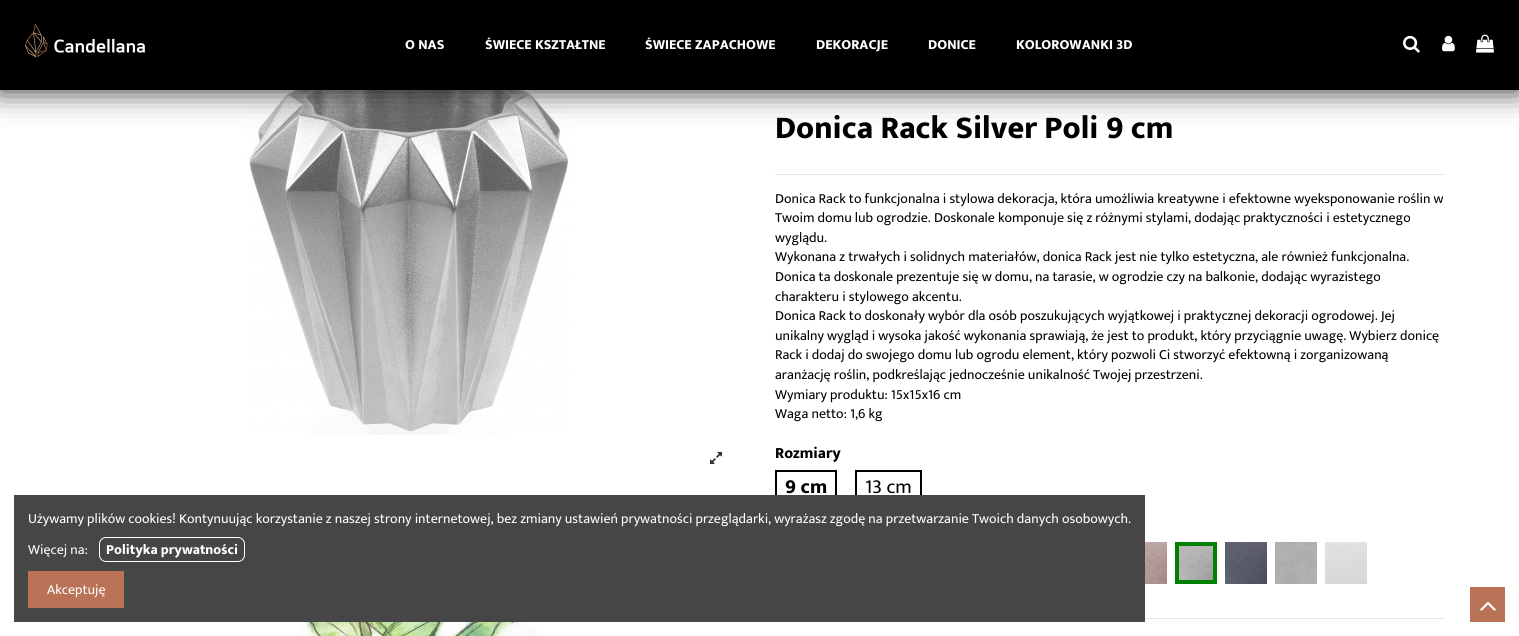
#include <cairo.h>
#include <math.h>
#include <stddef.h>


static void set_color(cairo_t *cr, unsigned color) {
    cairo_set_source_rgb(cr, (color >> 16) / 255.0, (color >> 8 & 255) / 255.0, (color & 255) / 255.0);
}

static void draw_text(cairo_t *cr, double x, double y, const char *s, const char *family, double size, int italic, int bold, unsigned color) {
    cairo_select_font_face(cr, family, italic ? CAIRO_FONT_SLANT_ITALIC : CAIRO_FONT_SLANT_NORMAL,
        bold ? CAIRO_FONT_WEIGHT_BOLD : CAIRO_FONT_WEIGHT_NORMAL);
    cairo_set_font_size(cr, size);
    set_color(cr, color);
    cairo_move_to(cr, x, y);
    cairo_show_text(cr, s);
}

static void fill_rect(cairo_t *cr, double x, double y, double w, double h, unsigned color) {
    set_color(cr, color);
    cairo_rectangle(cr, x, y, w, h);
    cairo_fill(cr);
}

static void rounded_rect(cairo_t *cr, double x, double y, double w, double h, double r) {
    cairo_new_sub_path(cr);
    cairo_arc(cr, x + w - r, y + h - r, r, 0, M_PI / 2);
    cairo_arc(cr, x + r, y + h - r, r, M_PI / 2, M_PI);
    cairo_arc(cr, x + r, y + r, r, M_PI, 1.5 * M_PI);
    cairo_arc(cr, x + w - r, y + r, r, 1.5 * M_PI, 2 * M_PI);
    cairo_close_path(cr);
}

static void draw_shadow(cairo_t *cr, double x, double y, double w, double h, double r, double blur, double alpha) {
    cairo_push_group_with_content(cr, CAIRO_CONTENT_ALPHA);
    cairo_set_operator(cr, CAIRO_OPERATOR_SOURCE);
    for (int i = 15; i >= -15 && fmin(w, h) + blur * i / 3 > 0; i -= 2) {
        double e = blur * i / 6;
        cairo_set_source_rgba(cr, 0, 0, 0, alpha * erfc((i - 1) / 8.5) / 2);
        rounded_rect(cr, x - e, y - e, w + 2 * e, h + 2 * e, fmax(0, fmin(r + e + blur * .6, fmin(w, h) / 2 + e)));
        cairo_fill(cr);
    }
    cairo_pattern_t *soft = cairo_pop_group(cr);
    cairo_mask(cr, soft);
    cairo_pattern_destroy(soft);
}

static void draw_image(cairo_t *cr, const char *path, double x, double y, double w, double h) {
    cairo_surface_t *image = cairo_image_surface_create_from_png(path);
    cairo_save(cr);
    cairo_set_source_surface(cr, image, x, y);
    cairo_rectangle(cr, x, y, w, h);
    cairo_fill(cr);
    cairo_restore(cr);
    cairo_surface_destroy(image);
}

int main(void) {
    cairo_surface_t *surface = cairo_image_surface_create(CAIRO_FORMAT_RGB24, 1519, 636);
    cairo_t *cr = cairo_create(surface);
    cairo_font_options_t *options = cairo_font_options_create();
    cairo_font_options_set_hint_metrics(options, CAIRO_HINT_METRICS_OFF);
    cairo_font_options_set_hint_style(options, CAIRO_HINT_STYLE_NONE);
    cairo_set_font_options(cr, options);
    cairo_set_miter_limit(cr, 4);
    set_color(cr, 0xFFFFFF);
    cairo_paint(cr);
    draw_image(cr, "assets/img5.png", 247, 90, 323, 345);
    set_color(cr, 0x000000);
    draw_shadow(cr, -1, -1, 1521, 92, 0, 15, 0.8);
    fill_rect(cr, 0, 0, 1519, 90, 0x000000);
    draw_image(cr, "assets/img1.png", 25, 24, 120, 34);
    draw_text(cr, 405, 49, "O NAS", "Mukta ExtraBold", 14, 0, 0, 0xFFFFFF);
    draw_text(cr, 485, 49, "ŚWIECE KSZTAŁTNE", "Mukta ExtraBold", 14, 0, 0, 0xFFFFFF);
    draw_text(cr, 645, 49, "ŚWIECE ZAPACHOWE", "Mukta ExtraBold", 14, 0, 0, 0xFFFFFF);
    draw_text(cr, 816, 49, "DEKORACJE", "Mukta ExtraBold", 14, 0, 0, 0xFFFFFF);
    draw_text(cr, 928, 49, "DONICE", "Mukta ExtraBold", 14, 0, 0, 0xFFFFFF);
    draw_text(cr, 1016, 49, "KOLOROWANKI 3D", "Mukta ExtraBold", 14, 0, 0, 0xFFFFFF);
    draw_image(cr, "assets/img2.png", 1403, 35, 17, 18);
    draw_image(cr, "assets/img3.png", 1442, 35, 13, 17);
    draw_image(cr, "assets/img4.png", 1476, 34, 18, 19);
    draw_image(cr, "assets/img6.png", 710, 452, 12, 12);
    draw_image(cr, "assets/img7.png", 299, 622, 239, 14);
    fill_rect(cr, 775, 174, 670, 1, 0xE7E7E7);
    draw_text(cr, 775, 138, "Donica Rack Silver Poli 9 cm", "Mukta ExtraBold", 32, 0, 0, 0x000000);
    draw_text(cr, 775, 203, "Donica Rack to funkcjonalna i stylowa dekoracja, która umożliwia kreatywne i efektowne wyeksponowanie roślin w", "Mukta", 14, 0, 0, 0x000000);
    draw_text(cr, 775, 222, "Twoim domu lub ogrodzie. Doskonale komponuje się z różnymi stylami, dodając praktyczności i estetycznego", "Mukta", 14, 0, 0, 0x000000);
    draw_text(cr, 775, 242, "wyglądu.", "Mukta", 14, 0, 0, 0x000000);
    draw_text(cr, 775, 261, "Wykonana z trwałych i solidnych materiałów, donica Rack jest nie tylko estetyczna, ale również funkcjonalna.", "Mukta", 14, 0, 0, 0x000000);
    draw_text(cr, 775, 281, "Donica ta doskonale prezentuje się w domu, na tarasie, w ogrodzie czy na balkonie, dodając wyrazistego", "Mukta", 14, 0, 0, 0x000000);
    draw_text(cr, 775, 301, "charakteru i stylowego akcentu.", "Mukta", 14, 0, 0, 0x000000);
    draw_text(cr, 775, 320, "Donica Rack to doskonały wybór dla osób poszukujących wyjątkowej i praktycznej dekoracji ogrodowej. Jej", "Mukta", 14, 0, 0, 0x000000);
    draw_text(cr, 775, 340, "unikalny wygląd i wysoka jakość wykonania sprawiają, że jest to produkt, który przyciągnie uwagę. Wybierz donicę", "Mukta", 14, 0, 0, 0x000000);
    draw_text(cr, 775, 359, "Rack i dodaj do swojego domu lub ogrodu element, który pozwoli Ci stworzyć efektowną i zorganizowaną", "Mukta", 14, 0, 0, 0x000000);
    draw_text(cr, 775, 379, "aranżację roślin, podkreślając jednocześnie unikalność Twojej przestrzeni.", "Mukta", 14, 0, 0, 0x000000);
    draw_text(cr, 775, 399, "Wymiary produktu: 15x15x16 cm", "Mukta", 14, 0, 0, 0x000000);
    draw_text(cr, 775, 418, "Waga netto: 1,6 kg", "Mukta", 14, 0, 0, 0x000000);
    draw_text(cr, 775, 458, "Rozmiary", "Mukta ExtraBold", 15.75, 0, 0, 0x000000);
    cairo_rectangle(cr, 776, 471, 60, 29);
    cairo_stroke(cr);
    draw_text(cr, 785, 493, "9 cm", "Mukta ExtraBold", 20, 0, 0, 0x000000);
    cairo_rectangle(cr, 856, 471, 65, 29);
    cairo_stroke(cr);
    draw_text(cr, 865, 493, "13 cm", "Mukta", 20, 0, 0, 0x000000);
    draw_image(cr, "assets/img8.png", 1145, 542, 22, 42);
    cairo_rectangle(cr, 1177, 544, 38, 38);
    set_color(cr, 0x008000);
    cairo_set_line_width(cr, 4);
    cairo_stroke(cr);
    draw_image(cr, "assets/img9.png", 1179, 546, 34, 34);
    draw_image(cr, "assets/img10.png", 1225, 542, 42, 42);
    draw_image(cr, "assets/img11.png", 1275, 542, 42, 42);
    draw_image(cr, "assets/img12.png", 1325, 542, 42, 42);
    fill_rect(cr, 1145, 618, 300, 1, 0xE7E7E7);
    fill_rect(cr, 14, 495, 1131, 127, 0x464646);
    draw_text(cr, 28, 523, "Używamy plików cookies! Kontynuując korzystanie z naszej strony internetowej, bez zmiany ustawień prywatności przeglądarki, wyrażasz zgodę na przetwarzanie Twoich danych osobowych.", "Mukta", 14, 0, 0, 0xFFFFFF);
    draw_text(cr, 28, 554, "Więcej na:", "Mukta", 14, 0, 0, 0xFFFFFF);
    rounded_rect(cr, 99.5, 537.5, 145, 24, 6.5);
    cairo_set_line_width(cr, 1);
    cairo_stroke(cr);
    draw_text(cr, 106, 554, "Polityka prywatności", "Mukta ExtraBold", 14, 0, 0, 0xFFFFFF);
    fill_rect(cr, 28, 571, 96, 37, 0xB97255);
    draw_text(cr, 47, 594, "Akceptuję", "Mukta", 14, 0, 0, 0xFFFFFF);
    fill_rect(cr, 1470, 587, 35, 35, 0xB97255);
    draw_image(cr, "assets/img13.png", 1480, 601, 16, 10);
    cairo_surface_write_to_png(surface, "output.png");
    cairo_font_options_destroy(options);
    cairo_destroy(cr);
    cairo_surface_destroy(surface);
    return 0;
}
